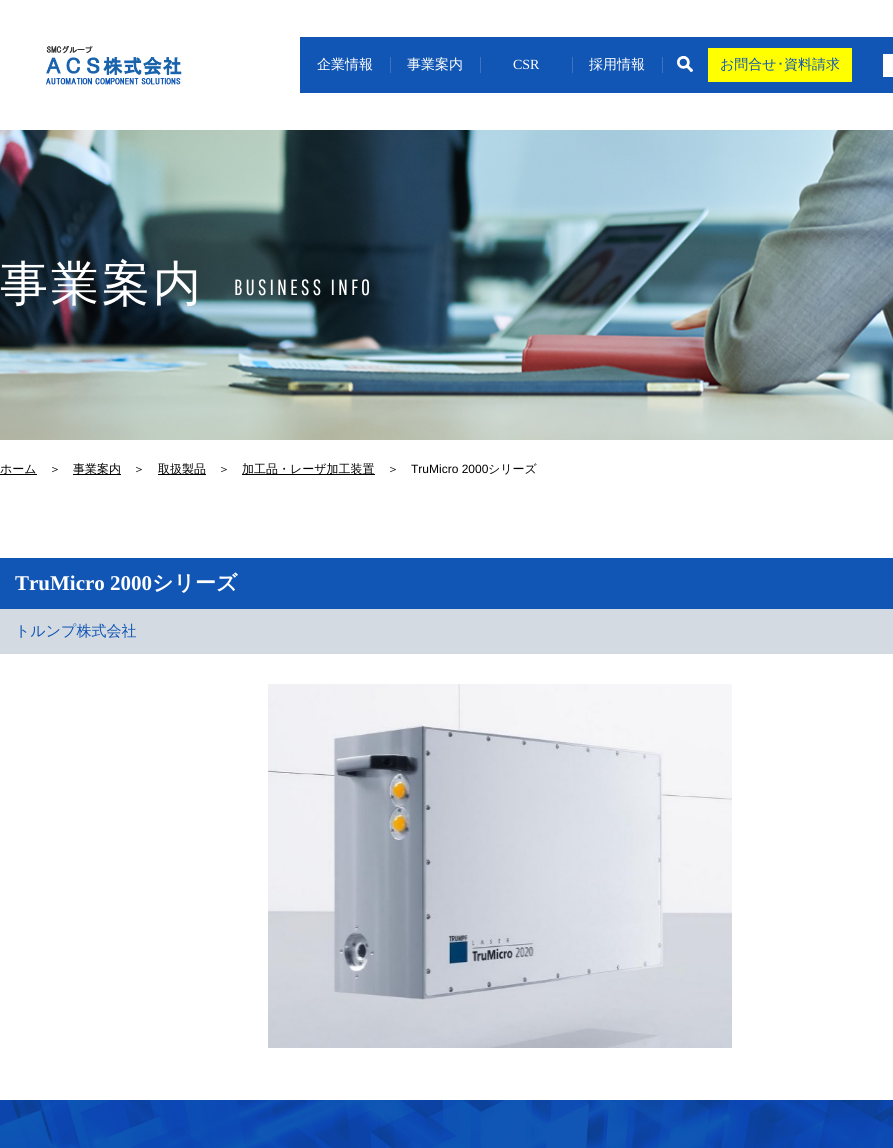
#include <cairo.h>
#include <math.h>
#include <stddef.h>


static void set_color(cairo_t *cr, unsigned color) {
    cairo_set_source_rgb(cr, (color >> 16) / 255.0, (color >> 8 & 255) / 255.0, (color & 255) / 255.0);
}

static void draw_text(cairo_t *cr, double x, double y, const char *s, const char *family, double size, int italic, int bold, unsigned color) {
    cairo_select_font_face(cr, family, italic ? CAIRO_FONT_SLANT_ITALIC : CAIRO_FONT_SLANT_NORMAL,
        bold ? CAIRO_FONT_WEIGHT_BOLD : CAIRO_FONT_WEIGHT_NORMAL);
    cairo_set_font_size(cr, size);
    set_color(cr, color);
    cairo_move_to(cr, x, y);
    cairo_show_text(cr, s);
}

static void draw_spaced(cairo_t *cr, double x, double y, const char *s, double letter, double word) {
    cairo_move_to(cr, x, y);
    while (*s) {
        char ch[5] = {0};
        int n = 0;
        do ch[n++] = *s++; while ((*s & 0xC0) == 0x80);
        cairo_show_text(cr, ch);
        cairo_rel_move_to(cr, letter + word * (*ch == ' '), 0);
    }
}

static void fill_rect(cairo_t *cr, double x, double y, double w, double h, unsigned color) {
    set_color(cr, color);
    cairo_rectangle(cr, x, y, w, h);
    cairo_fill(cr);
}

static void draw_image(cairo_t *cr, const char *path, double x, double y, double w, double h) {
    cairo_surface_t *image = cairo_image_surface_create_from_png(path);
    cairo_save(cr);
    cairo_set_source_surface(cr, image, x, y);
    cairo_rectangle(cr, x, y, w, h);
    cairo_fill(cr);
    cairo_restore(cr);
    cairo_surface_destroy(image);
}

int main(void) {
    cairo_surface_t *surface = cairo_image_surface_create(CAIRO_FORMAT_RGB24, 893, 1148);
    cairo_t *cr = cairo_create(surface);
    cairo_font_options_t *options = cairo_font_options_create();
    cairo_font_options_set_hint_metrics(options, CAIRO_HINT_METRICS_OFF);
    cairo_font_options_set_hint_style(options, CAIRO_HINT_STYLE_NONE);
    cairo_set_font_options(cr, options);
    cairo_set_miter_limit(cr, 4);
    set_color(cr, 0xFFFFFF);
    cairo_paint(cr);
    draw_image(cr, "assets/img1.png", 45, 45, 137, 40);
    fill_rect(cr, 300, 37, 593, 56, 0x1156B4);
    draw_text(cr, 317, 69, "企業情報", "WenQuanYi Zen Hei Medium", 14, 0, 0, 0xFFFFFF);
    fill_rect(cr, 390, 57, 1, 16, 0x3C74C2);
    draw_text(cr, 407, 69, "事業案内", "WenQuanYi Zen Hei Medium", 14, 0, 0, 0xFFFFFF);
    fill_rect(cr, 480, 57, 1, 16, 0x3C74C2);
    draw_text(cr, 513, 69, "CSR", "Liberation Serif", 14, 0, 0, 0xFFFFFF);
    fill_rect(cr, 572, 57, 1, 16, 0x3C74C2);
    draw_text(cr, 589, 69, "採用情報", "WenQuanYi Zen Hei Medium", 14, 0, 0, 0xFFFFFF);
    fill_rect(cr, 662, 57, 1, 16, 0x3C74C2);
    draw_image(cr, "assets/img2.png", 677, 56, 16, 16);
    fill_rect(cr, 708, 48, 144, 34, 0xFFFF00);
    draw_text(cr, 720, 69, "お問合せ", "WenQuanYi Zen Hei Medium", 14, 0, 0, 0x1156B4);
    draw_text(cr, 777, 69, "･", "IPAGothic", 14, 0, 0, 0x1156B4);
    draw_text(cr, 784, 69, "資料請求", "WenQuanYi Zen Hei Medium", 14, 0, 0, 0x1156B4);
    fill_rect(cr, 883, 54, 10, 23, 0xFFFFFF);
    draw_image(cr, "assets/img3.png", 0, 130, 893, 310);
    cairo_set_font_size(cr, 48);
    draw_spaced(cr, 0, 300, "事業案内", 3, 0);
    cairo_select_font_face(cr, "Pathway Gothic One", CAIRO_FONT_SLANT_NORMAL, CAIRO_FONT_WEIGHT_NORMAL);
    cairo_set_font_size(cr, 22);
    draw_spaced(cr, 234, 295, "BUSINESS INFO", 3, 0);
    fill_rect(cr, 0, 474, 37, 1, 0x000000);
    draw_text(cr, 0, 473, "ホーム", "WenQuanYi Zen Hei Medium", 12, 0, 0, 0x000000);
    draw_text(cr, 49, 473, "＞", "WenQuanYi Zen Hei Medium", 12, 0, 0, 0x000000);
    fill_rect(cr, 73, 474, 48, 1, 0x000000);
    draw_text(cr, 73, 473, "事業案内", "WenQuanYi Zen Hei Medium", 12, 0, 0, 0x000000);
    draw_text(cr, 133, 473, "＞", "WenQuanYi Zen Hei Medium", 12, 0, 0, 0x000000);
    fill_rect(cr, 158, 474, 48, 1, 0x000000);
    draw_text(cr, 158, 473, "取扱製品", "WenQuanYi Zen Hei Medium", 12, 0, 0, 0x000000);
    draw_text(cr, 218, 473, "＞", "WenQuanYi Zen Hei Medium", 12, 0, 0, 0x000000);
    fill_rect(cr, 242, 474, 133, 1, 0x000000);
    draw_text(cr, 242, 473, "加工品・レーザ加工装置", "WenQuanYi Zen Hei Medium", 12, 0, 0, 0x000000);
    draw_text(cr, 387, 473, "＞", "WenQuanYi Zen Hei Medium", 12, 0, 0, 0x000000);
    draw_text(cr, 411, 473, "TruMicro 2000", "Liberation Sans", 12, 0, 0, 0x000000);
    draw_text(cr, 488, 473, "シリーズ", "WenQuanYi Zen Hei Medium", 12, 0, 0, 0x000000);
    fill_rect(cr, 0, 558, 893, 51, 0x1156B4);
    draw_text(cr, 15, 590, "TruMicro 2000", "Liberation Serif", 21, 0, 1, 0xFFFFFF);
    draw_text(cr, 152, 590, "シリーズ", "WenQuanYi Zen Hei", 21, 0, 1, 0xFFFFFF);
    fill_rect(cr, 0, 609, 893, 45, 0xD4DAE2);
    draw_text(cr, 15, 636, "トルンプ株式会社", "WenQuanYi Zen Hei Medium", 15, 0, 0, 0x1156B4);
    draw_image(cr, "assets/img4.png", 268, 684, 464, 364);
    draw_image(cr, "assets/img5.png", 0, 1100, 893, 48);
    cairo_surface_write_to_png(surface, "output.png");
    cairo_font_options_destroy(options);
    cairo_destroy(cr);
    cairo_surface_destroy(surface);
    return 0;
}
